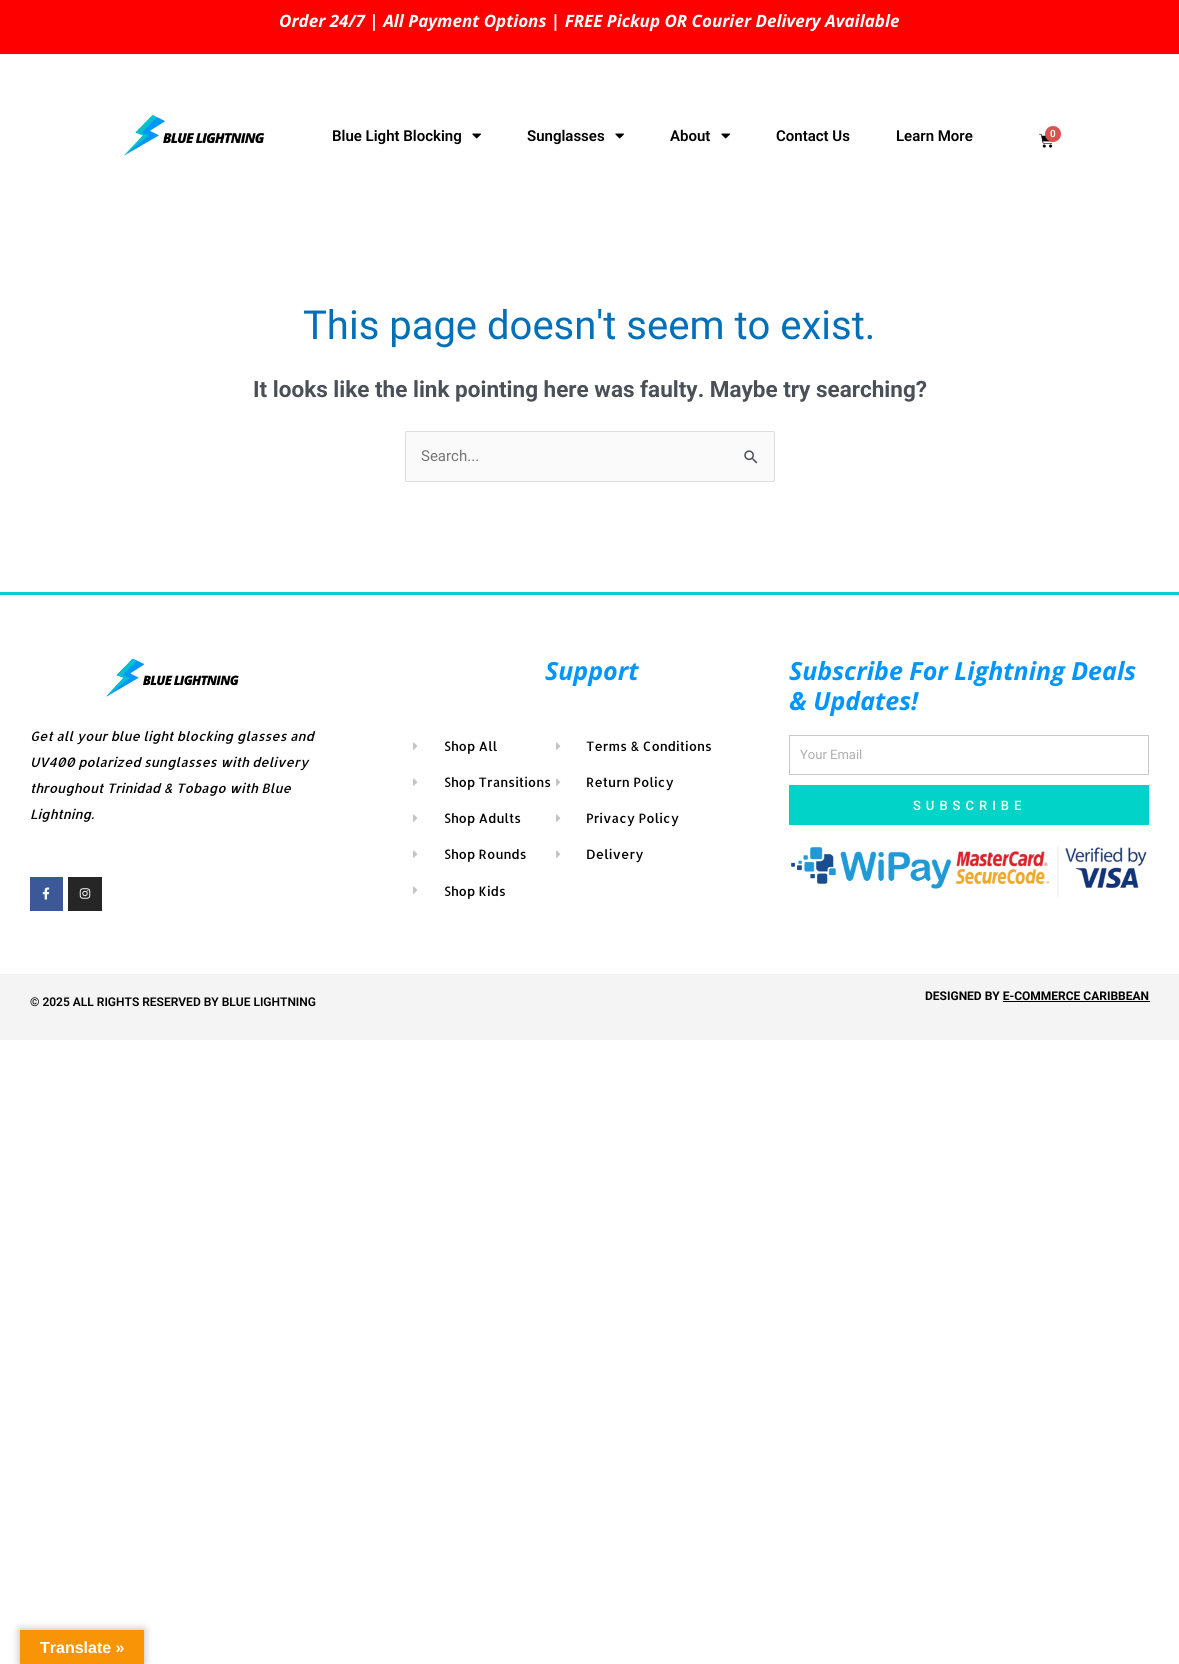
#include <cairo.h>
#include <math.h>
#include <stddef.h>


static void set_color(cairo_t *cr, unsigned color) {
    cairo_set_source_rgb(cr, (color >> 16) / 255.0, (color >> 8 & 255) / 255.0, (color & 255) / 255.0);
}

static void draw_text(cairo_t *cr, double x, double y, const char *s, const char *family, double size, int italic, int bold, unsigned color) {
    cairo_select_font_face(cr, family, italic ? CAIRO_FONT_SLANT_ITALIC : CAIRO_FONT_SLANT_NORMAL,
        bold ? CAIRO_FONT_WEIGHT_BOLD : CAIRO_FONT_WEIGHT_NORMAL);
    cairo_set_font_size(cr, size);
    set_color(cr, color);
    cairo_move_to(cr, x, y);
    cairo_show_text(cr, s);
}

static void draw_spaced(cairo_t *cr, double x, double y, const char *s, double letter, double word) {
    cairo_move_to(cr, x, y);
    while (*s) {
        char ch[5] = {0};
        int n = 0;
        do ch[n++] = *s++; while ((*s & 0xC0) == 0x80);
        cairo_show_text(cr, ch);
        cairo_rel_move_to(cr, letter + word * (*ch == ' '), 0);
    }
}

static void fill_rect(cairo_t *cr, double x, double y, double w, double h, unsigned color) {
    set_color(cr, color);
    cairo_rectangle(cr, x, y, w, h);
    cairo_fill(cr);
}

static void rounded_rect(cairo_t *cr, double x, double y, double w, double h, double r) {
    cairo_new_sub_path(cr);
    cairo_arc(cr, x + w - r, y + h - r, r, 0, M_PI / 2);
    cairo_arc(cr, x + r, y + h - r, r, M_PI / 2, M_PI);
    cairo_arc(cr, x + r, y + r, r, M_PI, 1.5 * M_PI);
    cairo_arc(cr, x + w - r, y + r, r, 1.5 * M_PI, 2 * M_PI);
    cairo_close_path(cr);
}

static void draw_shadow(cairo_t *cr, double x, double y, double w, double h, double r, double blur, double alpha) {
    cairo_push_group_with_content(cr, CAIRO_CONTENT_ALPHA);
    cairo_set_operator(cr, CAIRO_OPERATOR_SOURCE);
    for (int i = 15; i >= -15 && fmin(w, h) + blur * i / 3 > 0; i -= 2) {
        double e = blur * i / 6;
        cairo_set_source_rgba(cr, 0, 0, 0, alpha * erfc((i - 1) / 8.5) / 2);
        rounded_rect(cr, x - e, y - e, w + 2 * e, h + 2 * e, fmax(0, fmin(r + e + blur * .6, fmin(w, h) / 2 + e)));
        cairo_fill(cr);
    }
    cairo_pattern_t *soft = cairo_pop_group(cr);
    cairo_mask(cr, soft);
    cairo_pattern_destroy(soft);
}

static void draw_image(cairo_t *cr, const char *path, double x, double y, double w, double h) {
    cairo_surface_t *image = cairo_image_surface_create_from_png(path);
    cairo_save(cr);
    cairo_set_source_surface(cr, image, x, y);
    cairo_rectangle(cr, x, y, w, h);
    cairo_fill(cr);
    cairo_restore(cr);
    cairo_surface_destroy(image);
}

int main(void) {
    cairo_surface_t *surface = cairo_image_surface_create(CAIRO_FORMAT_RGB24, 1179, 1664);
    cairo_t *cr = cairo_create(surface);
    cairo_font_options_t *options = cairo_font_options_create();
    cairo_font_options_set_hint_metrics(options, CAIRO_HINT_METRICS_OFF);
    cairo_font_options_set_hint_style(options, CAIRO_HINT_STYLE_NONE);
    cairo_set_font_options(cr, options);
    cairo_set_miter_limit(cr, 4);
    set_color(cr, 0xFFFFFF);
    cairo_paint(cr);
    fill_rect(cr, 0, 0, 1179, 54, 0xFF0000);
    draw_text(cr, 279, 27, "Order 24/7 | All Payment Options | FREE Pickup OR Courier Delivery Available", "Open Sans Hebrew", 17, 1, 1, 0xFFFFFF);
    draw_image(cr, "assets/img1.png", 124, 115, 141, 41);
    draw_text(cr, 332, 141, "Blue Light Blocking", "Roboto SemiBold", 15, 0, 0, 0x000000);
    draw_image(cr, "assets/img2.png", 472, 133, 9, 6);
    draw_text(cr, 527, 141, "Sunglasses", "Roboto SemiBold", 15, 0, 0, 0x000000);
    draw_image(cr, "assets/img2.png", 615, 133, 9, 6);
    draw_text(cr, 670, 141, "About", "Roboto SemiBold", 15, 0, 0, 0x000000);
    draw_image(cr, "assets/img2.png", 721, 133, 9, 6);
    draw_text(cr, 776, 141, "Contact Us", "Roboto SemiBold", 15, 0, 0, 0x000000);
    draw_text(cr, 896, 141, "Learn More", "Roboto SemiBold", 15, 0, 0, 0x000000);
    draw_image(cr, "assets/img3.png", 1039, 133, 14, 15);
    set_color(cr, 0xD9534F);
    cairo_arc(cr, 1053, 134, 8, 0, 2 * M_PI);
    cairo_fill(cr);
    draw_text(cr, 1050, 137, "0", "Roboto SemiBold", 10, 0, 0, 0xFFFFFF);
    draw_text(cr, 303, 339, "This page doesn't seem to exist.", "Roboto", 40, 0, 0, 0x0170B9);
    draw_text(cr, 253, 397, "It looks like the link pointing here was faulty. Maybe try searching?", "Roboto", 22.5, 0, 1, 0x4B4F58);
    set_color(cr, 0xFAFAFA);
    rounded_rect(cr, 405.5, 431.5, 369, 50, 1.5);
    cairo_fill_preserve(cr);
    set_color(cr, 0xDDDDDD);
    cairo_set_line_width(cr, 1);
    cairo_stroke(cr);
    draw_text(cr, 421, 461, "Search...", "Roboto", 15, 0, 0, 0x757575);
    draw_image(cr, "assets/img4.png", 744, 450, 14, 14);
    fill_rect(cr, 0, 592, 1179, 3, 0x02D3C9);
    draw_image(cr, "assets/img5.png", 106, 658, 133, 39);
    draw_text(cr, 30, 741, "Get all your blue light blocking glasses and", "Allerta", 13, 1, 0, 0x000000);
    draw_text(cr, 30, 767, "UV400 polarized sunglasses with delivery", "Allerta", 13, 1, 0, 0x000000);
    draw_text(cr, 30, 793, "throughout Trinidad & Tobago with Blue", "Allerta", 13, 1, 0, 0x000000);
    draw_text(cr, 30, 819, "Lightning.", "Allerta", 13, 1, 0, 0x000000);
    fill_rect(cr, 30, 877, 33, 34, 0x3B5998);
    draw_image(cr, "assets/img6.png", 42, 887, 8, 13);
    fill_rect(cr, 68, 877, 34, 34, 0x262626);
    draw_image(cr, "assets/img7.png", 79, 888, 12, 11);
    draw_text(cr, 545, 680, "Support", "Open Sans Hebrew", 25, 1, 1, 0x0095FF);
    draw_image(cr, "assets/img8.png", 413, 742, 5, 8);
    draw_text(cr, 444, 751, "Shop All", "Allerta", 13, 0, 0, 0x000000);
    draw_image(cr, "assets/img8.png", 413, 778, 5, 8);
    draw_text(cr, 444, 787, "Shop Transitions", "Allerta", 13, 0, 0, 0x000000);
    draw_image(cr, "assets/img8.png", 413, 814, 5, 8);
    draw_text(cr, 444, 823, "Shop Adults", "Allerta", 13, 0, 0, 0x000000);
    draw_image(cr, "assets/img8.png", 413, 850, 5, 8);
    draw_text(cr, 444, 859, "Shop Rounds", "Allerta", 13, 0, 0, 0x000000);
    draw_image(cr, "assets/img8.png", 413, 886, 5, 8);
    draw_text(cr, 444, 896, "Shop Kids", "Allerta", 13, 0, 0, 0x000000);
    draw_image(cr, "assets/img8.png", 556, 742, 5, 8);
    draw_text(cr, 586, 751, "Terms & Conditions", "Allerta", 13, 0, 0, 0x000000);
    draw_image(cr, "assets/img8.png", 556, 778, 5, 8);
    draw_text(cr, 586, 787, "Return Policy", "Allerta", 13, 0, 0, 0x000000);
    draw_image(cr, "assets/img8.png", 556, 814, 5, 8);
    draw_text(cr, 586, 823, "Privacy Policy", "Allerta", 13, 0, 0, 0x000000);
    draw_image(cr, "assets/img8.png", 556, 850, 5, 8);
    draw_text(cr, 586, 859, "Delivery", "Allerta", 13, 0, 0, 0x000000);
    draw_text(cr, 789, 680, "Subscribe For Lightning Deals", "Open Sans Hebrew", 25, 1, 1, 0x0095FF);
    draw_text(cr, 789, 710, "& Updates!", "Open Sans Hebrew", 25, 1, 1, 0x0095FF);
    cairo_rectangle(cr, 789.5, 735.5, 359, 39);
    set_color(cr, 0xC9C9C9);
    cairo_stroke(cr);
    draw_text(cr, 800, 759, "Your Email", "Roboto", 13, 0, 0, 0xAFAFAF);
    fill_rect(cr, 789, 785, 360, 40, 0x02D3C9);
    cairo_select_font_face(cr, "Roboto Medium", CAIRO_FONT_SLANT_NORMAL, CAIRO_FONT_WEIGHT_NORMAL);
    set_color(cr, 0xFFFFFF);
    draw_spaced(cr, 913, 810, "SUBSCRIBE", 5, 0);
    draw_image(cr, "assets/img9.png", 791, 845, 356, 52);
    fill_rect(cr, 0, 974, 1179, 66, 0xF4F4F4);
    draw_text(cr, 925, 1000, "DESIGNED BY E-COMMERCE CARIBBEAN", "Roboto", 12, 0, 1, 0x000000);
    fill_rect(cr, 1003, 1001, 147, 1, 0x000000);
    draw_text(cr, 30, 1006, "© 2025 ALL RIGHTS RESERVED BY BLUE LIGHTNING", "Roboto SemiBold", 12, 0, 0, 0x000000);
    set_color(cr, 0x000000);
    draw_shadow(cr, 20, 1630, 124, 34, 0, 4.5, 0.3);
    fill_rect(cr, 20, 1630, 124, 34, 0xF89406);
    draw_text(cr, 40, 1653, "Translate »", "Liberation Sans", 16, 0, 1, 0xFFFFFF);
    cairo_surface_write_to_png(surface, "output.png");
    cairo_font_options_destroy(options);
    cairo_destroy(cr);
    cairo_surface_destroy(surface);
    return 0;
}
